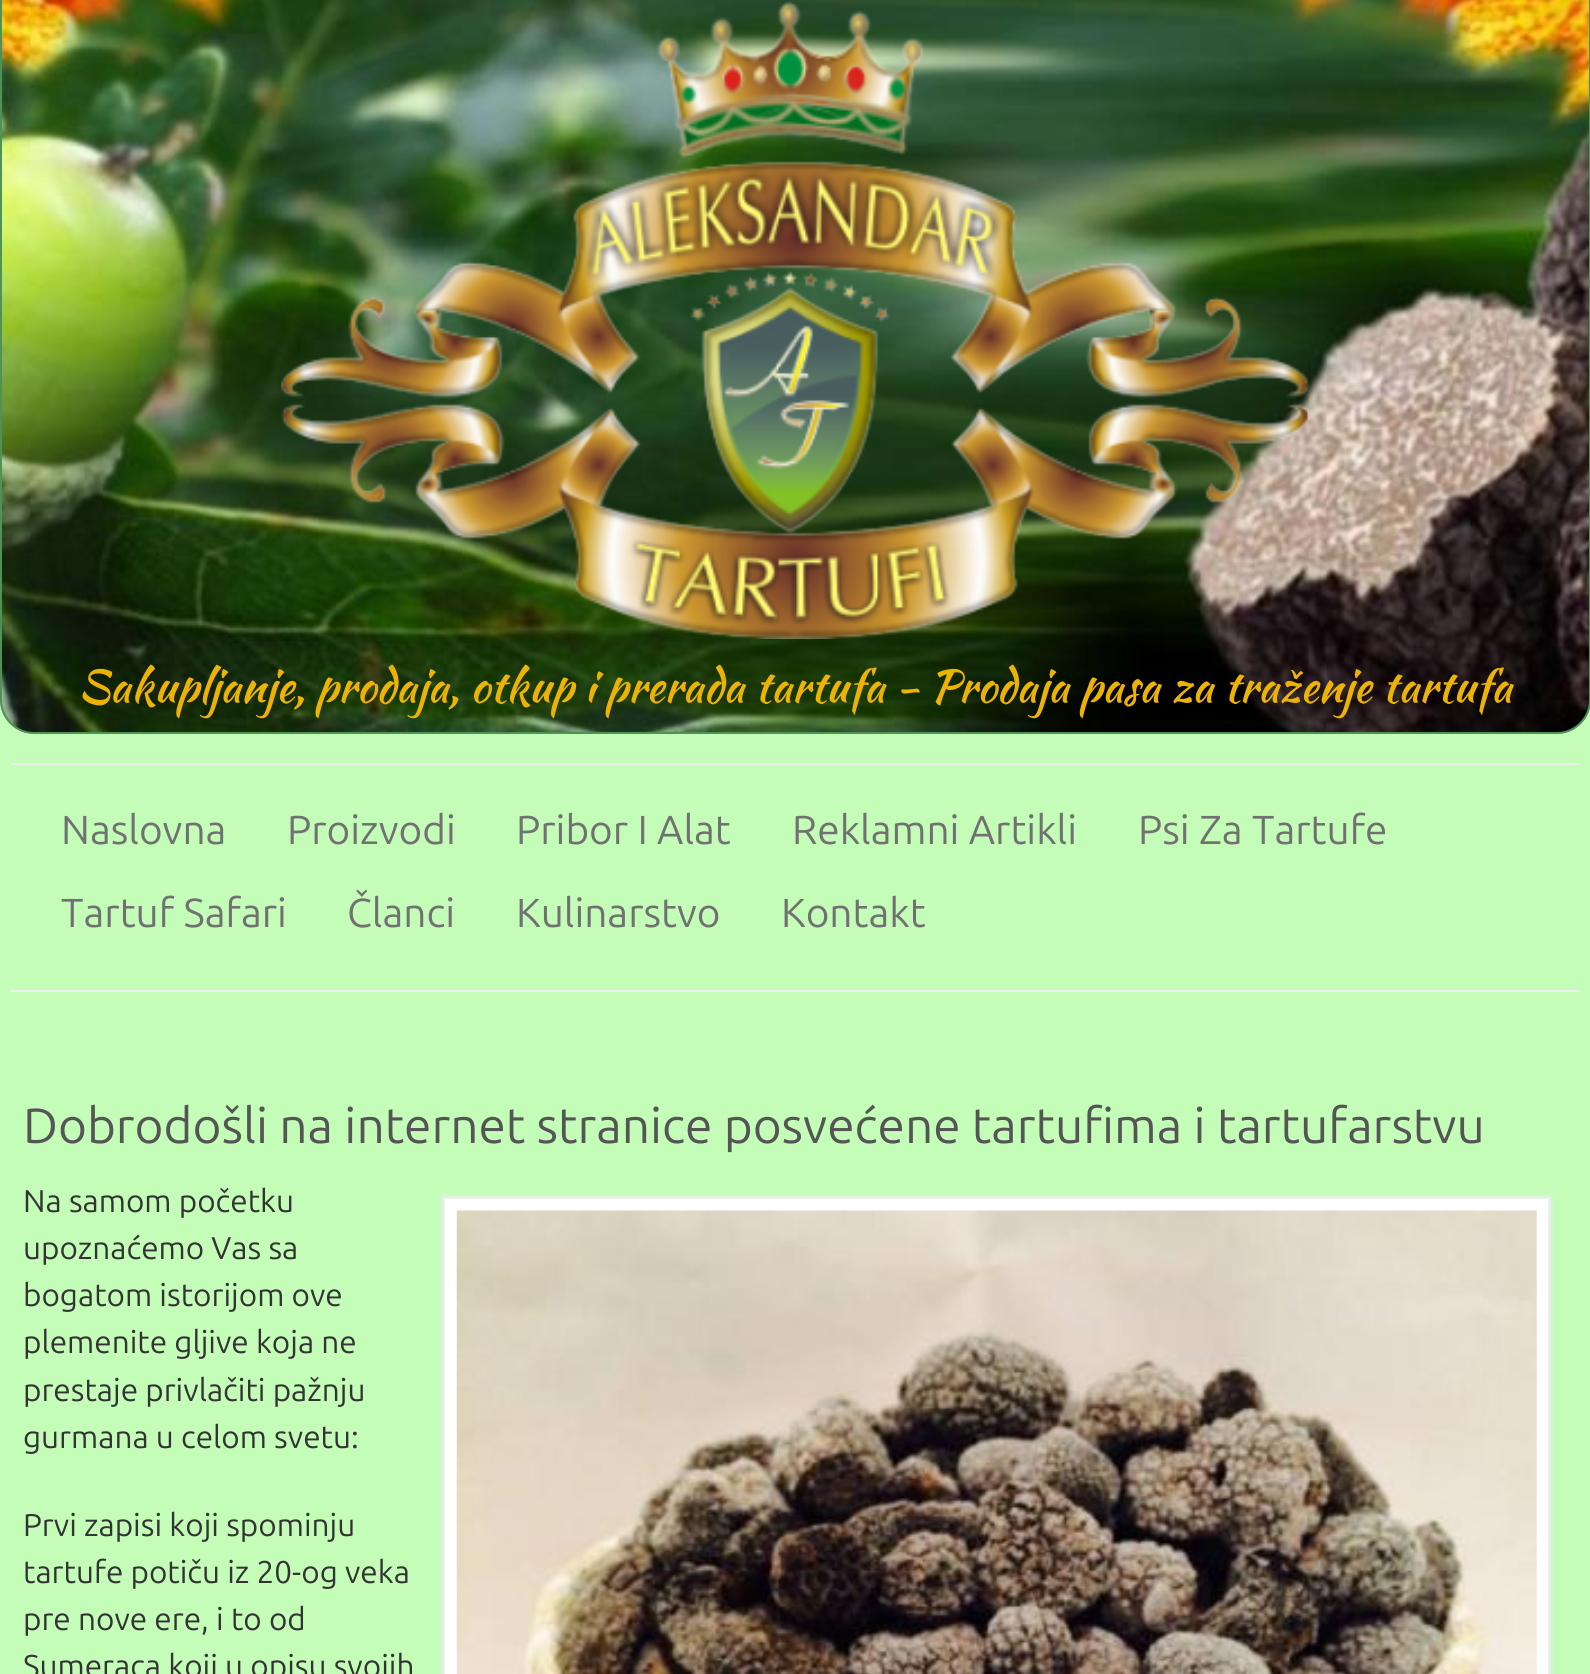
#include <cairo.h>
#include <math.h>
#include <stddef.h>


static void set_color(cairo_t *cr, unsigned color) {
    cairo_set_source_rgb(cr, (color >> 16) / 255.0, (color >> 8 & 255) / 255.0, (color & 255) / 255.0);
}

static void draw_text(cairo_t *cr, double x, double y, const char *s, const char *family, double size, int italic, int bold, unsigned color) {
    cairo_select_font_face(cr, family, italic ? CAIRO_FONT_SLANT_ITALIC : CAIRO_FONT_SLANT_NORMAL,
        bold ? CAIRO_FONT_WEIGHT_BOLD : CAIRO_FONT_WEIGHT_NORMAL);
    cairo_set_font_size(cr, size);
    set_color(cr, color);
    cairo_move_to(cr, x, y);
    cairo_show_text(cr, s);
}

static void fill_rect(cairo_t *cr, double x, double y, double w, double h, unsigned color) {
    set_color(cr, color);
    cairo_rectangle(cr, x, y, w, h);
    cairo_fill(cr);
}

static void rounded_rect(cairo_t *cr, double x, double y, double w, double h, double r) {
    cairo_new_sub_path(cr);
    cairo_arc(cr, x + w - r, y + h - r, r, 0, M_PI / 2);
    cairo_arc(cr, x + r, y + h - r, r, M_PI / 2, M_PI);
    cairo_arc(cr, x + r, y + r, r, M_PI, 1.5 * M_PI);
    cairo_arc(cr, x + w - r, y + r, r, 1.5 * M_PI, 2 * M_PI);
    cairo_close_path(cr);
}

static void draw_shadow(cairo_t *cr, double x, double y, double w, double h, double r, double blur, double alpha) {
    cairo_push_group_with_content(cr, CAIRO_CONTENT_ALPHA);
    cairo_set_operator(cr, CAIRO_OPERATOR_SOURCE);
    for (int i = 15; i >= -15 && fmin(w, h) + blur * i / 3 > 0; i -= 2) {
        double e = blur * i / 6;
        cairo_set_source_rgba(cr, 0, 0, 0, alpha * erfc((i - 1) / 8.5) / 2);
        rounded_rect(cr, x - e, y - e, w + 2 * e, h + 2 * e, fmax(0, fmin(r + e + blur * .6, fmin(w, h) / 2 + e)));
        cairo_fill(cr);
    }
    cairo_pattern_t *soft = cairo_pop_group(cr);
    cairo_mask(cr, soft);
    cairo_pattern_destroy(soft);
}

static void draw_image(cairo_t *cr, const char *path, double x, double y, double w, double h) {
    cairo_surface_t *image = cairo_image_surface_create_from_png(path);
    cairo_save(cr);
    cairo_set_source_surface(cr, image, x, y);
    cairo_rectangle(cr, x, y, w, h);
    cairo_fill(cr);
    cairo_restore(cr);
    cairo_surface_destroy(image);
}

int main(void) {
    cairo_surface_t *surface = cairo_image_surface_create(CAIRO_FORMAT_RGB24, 1590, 1674);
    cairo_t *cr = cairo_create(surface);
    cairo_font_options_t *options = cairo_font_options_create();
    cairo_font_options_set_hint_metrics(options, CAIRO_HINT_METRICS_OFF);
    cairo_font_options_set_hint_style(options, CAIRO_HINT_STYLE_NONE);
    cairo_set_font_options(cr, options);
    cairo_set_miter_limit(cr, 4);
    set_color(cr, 0xC3FDB8);
    cairo_paint(cr);
    draw_image(cr, "assets/img1.png", 0, 0, 1590, 734);
    cairo_new_path(cr);
    cairo_move_to(cr, 1, -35);
    cairo_line_to(cr, 1590, -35);
    cairo_line_to(cr, 1590, 700);
    cairo_curve_to(cr, 1590, 718, 1575, 733, 1557, 733);
    cairo_line_to(cr, 34, 733);
    cairo_curve_to(cr, 16, 733, 1, 718, 1, 700);
    cairo_close_path(cr);
    set_color(cr, 0x4E9258);
    cairo_stroke(cr);
    draw_image(cr, "assets/img2.png", 281, 1, 1029, 638);
    draw_text(cr, 78, 702, "Sakupljanje, prodaja, otkup i prerada tartufa - Prodaja pasa za traženje tartufa", "Kaushan Script", 45, 0, 0, 0xEDB304);
    fill_rect(cr, 11, 763, 1569, 2, 0xEEEEEE);
    fill_rect(cr, 11, 990, 1569, 2, 0xEEEEEE);
    draw_text(cr, 61, 844, "Naslovna", "Ubuntu", 40.5, 0, 0, 0x717171);
    draw_text(cr, 287, 844, "Proizvodi", "Ubuntu", 40.5, 0, 0, 0x717171);
    draw_text(cr, 516, 844, "Pribor I Alat", "Ubuntu", 40.5, 0, 0, 0x717171);
    draw_text(cr, 792, 844, "Reklamni Artikli", "Ubuntu", 40.5, 0, 0, 0x717171);
    draw_text(cr, 1138, 844, "Psi Za Tartufe", "Ubuntu", 40.5, 0, 0, 0x717171);
    draw_text(cr, 61, 927, "Tartuf Safari", "Ubuntu", 40.5, 0, 0, 0x717171);
    draw_text(cr, 347, 927, "Članci", "Ubuntu", 40.5, 0, 0, 0x717171);
    draw_text(cr, 516, 927, "Kulinarstvo", "Ubuntu", 40.5, 0, 0, 0x717171);
    draw_text(cr, 781, 927, "Kontakt", "Ubuntu", 40.5, 0, 0, 0x717171);
    draw_text(cr, 23, 1143, "Dobrodošli na internet stranice posvećene tartufima i tartufarstvu", "Ubuntu", 49.5, 0, 0, 0x555555);
    draw_text(cr, 23, 1212, "Na samom početku", "Ubuntu", 31.5, 0, 0, 0x333333);
    draw_text(cr, 23, 1259, "upoznaćemo Vas sa", "Ubuntu", 31.5, 0, 0, 0x333333);
    draw_text(cr, 23, 1306, "bogatom istorijom ove", "Ubuntu", 31.5, 0, 0, 0x333333);
    draw_text(cr, 23, 1353, "plemenite gljive koja ne", "Ubuntu", 31.5, 0, 0, 0x333333);
    draw_text(cr, 23, 1401, "prestaje privlačiti pažnju", "Ubuntu", 31.5, 0, 0, 0x333333);
    draw_text(cr, 23, 1448, "gurmana u celom svetu:", "Ubuntu", 31.5, 0, 0, 0x333333);
    draw_text(cr, 23, 1536, "Prvi zapisi koji spominju", "Ubuntu", 31.5, 0, 0, 0x333333);
    draw_text(cr, 23, 1583, "tartufe potiču iz 20-og veka", "Ubuntu", 31.5, 0, 0, 0x333333);
    draw_text(cr, 23, 1630, "pre nove ere, i to od", "Ubuntu", 31.5, 0, 0, 0x333333);
    draw_text(cr, 23, 1677, "Sumeraca koji u opisu svojih", "Ubuntu", 31.5, 0, 0, 0x333333);
    set_color(cr, 0xEEEEEE);
    draw_shadow(cr, 443, 1197, 1107, 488, 0, 3.5, 1);
    set_color(cr, 0xFFFFFF);
    cairo_rectangle(cr, 444, 1198, 1105, 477);
    cairo_fill_preserve(cr);
    set_color(cr, 0xEEEEEE);
    cairo_stroke(cr);
    draw_image(cr, "assets/img3.png", 456, 1210, 1081, 464);
    cairo_surface_write_to_png(surface, "output.png");
    cairo_font_options_destroy(options);
    cairo_destroy(cr);
    cairo_surface_destroy(surface);
    return 0;
}
